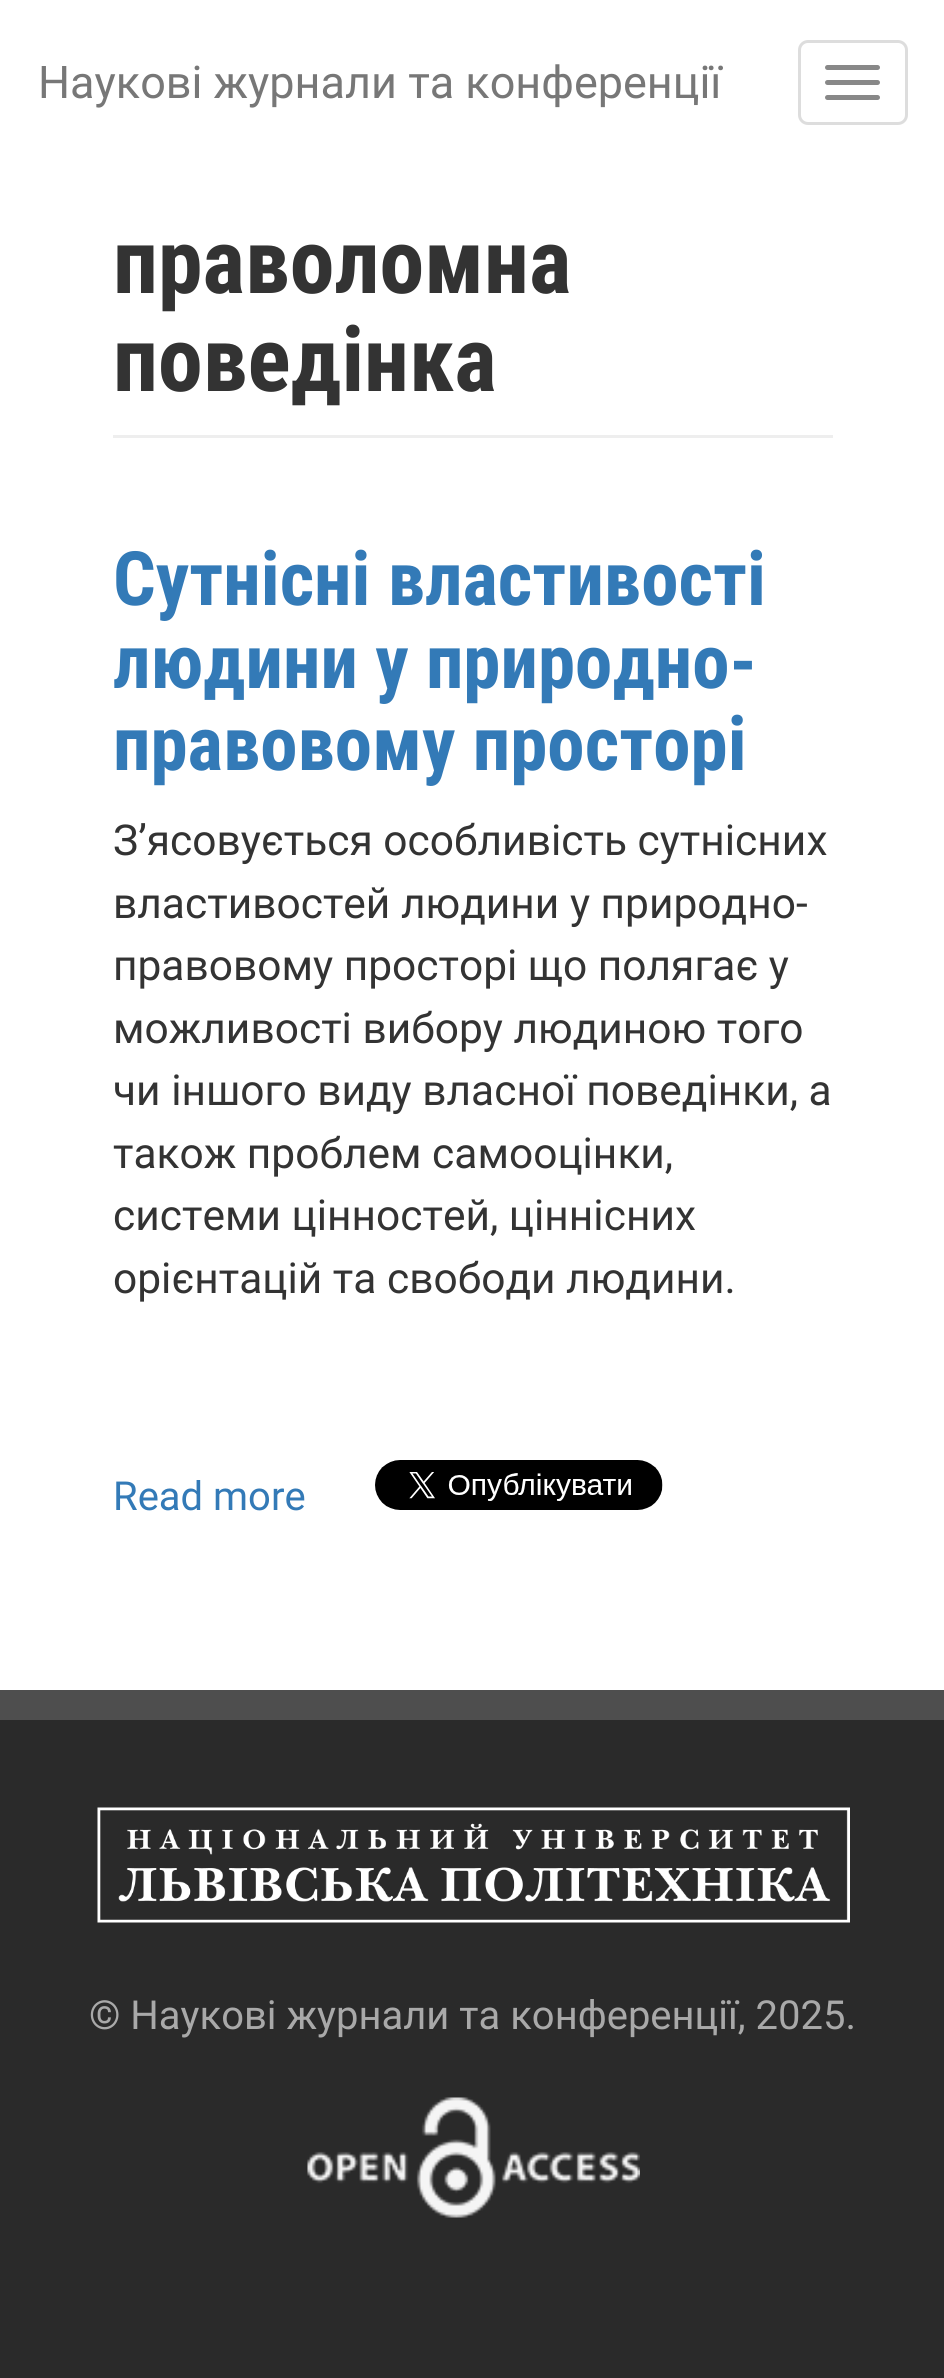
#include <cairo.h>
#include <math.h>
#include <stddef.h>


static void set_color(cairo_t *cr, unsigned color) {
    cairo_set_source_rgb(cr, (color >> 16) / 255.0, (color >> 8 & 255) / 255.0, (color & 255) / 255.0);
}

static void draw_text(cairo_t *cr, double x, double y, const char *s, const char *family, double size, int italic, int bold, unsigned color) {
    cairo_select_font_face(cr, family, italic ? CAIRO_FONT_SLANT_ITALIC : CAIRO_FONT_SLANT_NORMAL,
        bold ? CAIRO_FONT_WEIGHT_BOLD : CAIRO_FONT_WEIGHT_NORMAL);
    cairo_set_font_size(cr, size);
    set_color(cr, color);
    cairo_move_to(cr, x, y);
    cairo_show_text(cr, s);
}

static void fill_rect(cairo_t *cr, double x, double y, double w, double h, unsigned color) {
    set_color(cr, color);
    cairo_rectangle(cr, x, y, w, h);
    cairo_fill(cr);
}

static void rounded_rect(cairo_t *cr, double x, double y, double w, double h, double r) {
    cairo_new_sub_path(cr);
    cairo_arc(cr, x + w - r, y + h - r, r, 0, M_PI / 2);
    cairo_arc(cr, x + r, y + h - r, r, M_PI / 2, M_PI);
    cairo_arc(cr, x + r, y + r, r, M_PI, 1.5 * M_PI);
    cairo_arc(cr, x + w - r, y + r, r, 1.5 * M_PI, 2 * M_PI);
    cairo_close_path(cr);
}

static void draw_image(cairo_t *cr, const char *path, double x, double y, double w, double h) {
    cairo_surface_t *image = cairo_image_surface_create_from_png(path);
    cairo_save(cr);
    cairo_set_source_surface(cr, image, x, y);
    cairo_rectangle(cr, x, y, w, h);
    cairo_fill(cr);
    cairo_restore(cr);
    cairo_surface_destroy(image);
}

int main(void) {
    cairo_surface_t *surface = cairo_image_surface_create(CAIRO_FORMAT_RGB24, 944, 2378);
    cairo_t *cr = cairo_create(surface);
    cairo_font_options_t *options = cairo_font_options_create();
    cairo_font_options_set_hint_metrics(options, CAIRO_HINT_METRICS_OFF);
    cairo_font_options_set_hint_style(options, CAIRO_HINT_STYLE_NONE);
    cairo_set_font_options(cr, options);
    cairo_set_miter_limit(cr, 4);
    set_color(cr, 0x2A2A2A);
    cairo_paint(cr);
    fill_rect(cr, 0, 0, 944, 1690, 0xFFFFFF);
    draw_text(cr, 38, 98, "Наукові журнали та конференції", "Roboto", 45, 0, 0, 0x777777);
    rounded_rect(cr, 799.5, 41.5, 107, 82, 8.5);
    set_color(cr, 0xDDDDDD);
    cairo_set_line_width(cr, 3);
    cairo_stroke(cr);
    set_color(cr, 0x888888);
    rounded_rect(cr, 825, 65, 55, 5, 2.5);
    cairo_fill(cr);
    rounded_rect(cr, 825, 80, 55, 5, 2.5);
    cairo_fill(cr);
    rounded_rect(cr, 825, 95, 55, 5, 2.5);
    cairo_fill(cr);
    fill_rect(cr, 113, 435, 720, 3, 0xEEEEEE);
    draw_text(cr, 113, 293, "праволомна", "Roboto Condensed", 90, 0, 1, 0x333333);
    draw_text(cr, 113, 391, "поведінка", "Roboto Condensed", 90, 0, 1, 0x333333);
    draw_text(cr, 113, 605, "Сутнісні властивості", "Roboto Condensed", 75, 0, 1, 0x337AB7);
    draw_text(cr, 113, 688, "людини у природно-", "Roboto Condensed", 75, 0, 1, 0x337AB7);
    draw_text(cr, 113, 770, "правовому просторі", "Roboto Condensed", 75, 0, 1, 0x337AB7);
    draw_text(cr, 113, 855, "З’ясовується особливість сутнісних", "Roboto", 42.5, 0, 0, 0x333333);
    draw_text(cr, 113, 918, "властивостей людини у природно-", "Roboto", 42.5, 0, 0, 0x333333);
    draw_text(cr, 113, 980, "правовому просторі що полягає у", "Roboto", 42.5, 0, 0, 0x333333);
    draw_text(cr, 113, 1043, "можливості вибору людиною того", "Roboto", 42.5, 0, 0, 0x333333);
    draw_text(cr, 113, 1105, "чи іншого виду власної поведінки, а", "Roboto", 42.5, 0, 0, 0x333333);
    draw_text(cr, 113, 1168, "також проблем самооцінки,", "Roboto", 42.5, 0, 0, 0x333333);
    draw_text(cr, 113, 1230, "системи цінностей, ціннісних", "Roboto", 42.5, 0, 0, 0x333333);
    draw_text(cr, 113, 1293, "орієнтацій та свободи людини.", "Roboto", 42.5, 0, 0, 0x333333);
    draw_text(cr, 113, 1510, "Read more", "Roboto", 40, 0, 0, 0x337AB7);
    draw_image(cr, "assets/img1.png", 375, 1460, 288, 50);
    fill_rect(cr, 0, 1690, 944, 30, 0x4E4E4E);
    draw_image(cr, "assets/img2.png", 97, 1807, 753, 116);
    draw_text(cr, 89, 2029, "© Наукові журнали та конференції, 2025.", "Roboto", 40, 0, 0, 0xA9A9A9);
    draw_image(cr, "assets/img3.png", 307, 2097, 333, 121);
    cairo_surface_write_to_png(surface, "output.png");
    cairo_font_options_destroy(options);
    cairo_destroy(cr);
    cairo_surface_destroy(surface);
    return 0;
}
